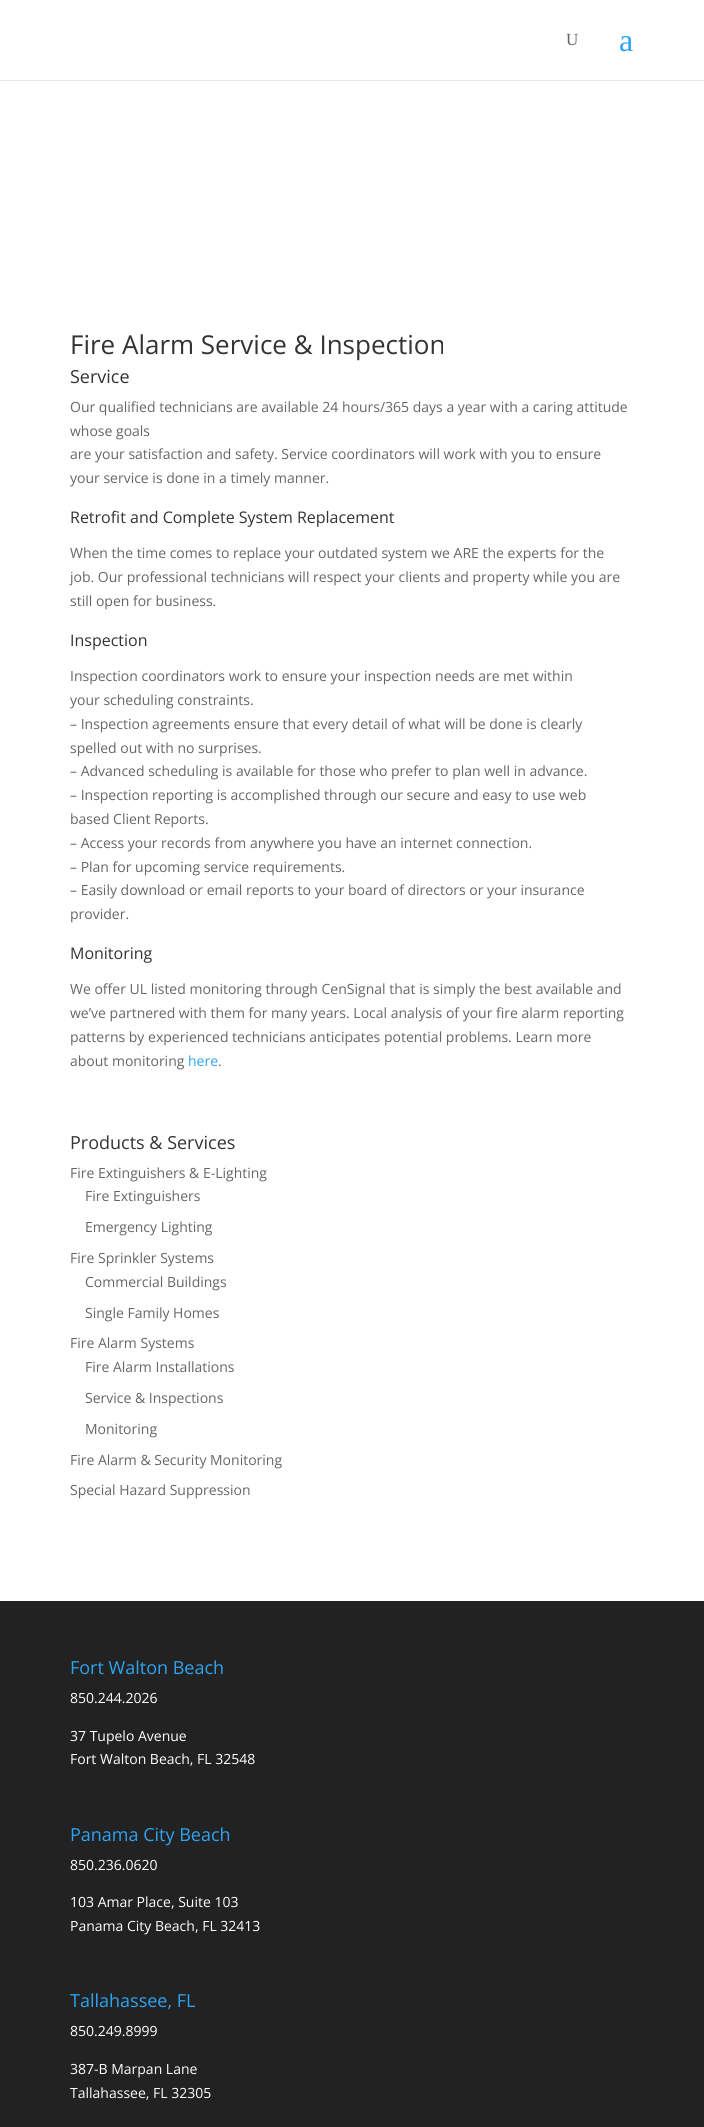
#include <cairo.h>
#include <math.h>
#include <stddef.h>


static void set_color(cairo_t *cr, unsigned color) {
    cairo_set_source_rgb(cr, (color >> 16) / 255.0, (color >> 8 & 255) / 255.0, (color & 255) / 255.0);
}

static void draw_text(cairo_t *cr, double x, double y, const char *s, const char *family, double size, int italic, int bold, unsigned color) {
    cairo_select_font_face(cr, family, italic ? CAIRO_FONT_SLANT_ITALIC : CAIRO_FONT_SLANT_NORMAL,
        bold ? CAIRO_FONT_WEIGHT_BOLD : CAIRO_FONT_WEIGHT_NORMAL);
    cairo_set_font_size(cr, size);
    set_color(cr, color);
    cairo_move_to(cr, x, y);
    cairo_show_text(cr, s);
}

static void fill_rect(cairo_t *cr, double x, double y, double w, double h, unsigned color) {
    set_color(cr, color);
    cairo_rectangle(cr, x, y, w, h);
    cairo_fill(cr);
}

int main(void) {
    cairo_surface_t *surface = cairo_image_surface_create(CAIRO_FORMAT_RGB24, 704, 2127);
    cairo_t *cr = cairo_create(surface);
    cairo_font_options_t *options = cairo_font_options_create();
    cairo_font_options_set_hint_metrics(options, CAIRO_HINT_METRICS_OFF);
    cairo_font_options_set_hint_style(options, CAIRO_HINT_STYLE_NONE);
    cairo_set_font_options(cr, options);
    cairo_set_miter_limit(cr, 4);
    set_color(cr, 0x222222);
    cairo_paint(cr);
    fill_rect(cr, 0, 80, 704, 1, 0xE6E6E6);
    fill_rect(cr, 0, 0, 704, 80, 0xFFFFFF);
    draw_text(cr, 566, 45, "U", "Liberation Serif", 17, 0, 0, 0x666666);
    draw_text(cr, 619, 51, "a", "Liberation Serif", 32, 0, 0, 0x2EA3F2);
    fill_rect(cr, 0, 81, 704, 1520, 0xFFFFFF);
    draw_text(cr, 70, 354, "Fire Alarm Service & Inspection", "Open Sans", 26, 0, 0, 0x333333);
    draw_text(cr, 70, 383, "Service", "Open Sans", 18, 0, 0, 0x333333);
    draw_text(cr, 70, 412, "Our qualified technicians are available 24 hours/365 days a year with a caring attitude", "Open Sans", 14, 0, 0, 0x666666);
    draw_text(cr, 70, 436, "whose goals", "Open Sans", 14, 0, 0, 0x666666);
    draw_text(cr, 70, 459, "are your satisfaction and safety. Service coordinators will work with you to ensure", "Open Sans", 14, 0, 0, 0x666666);
    draw_text(cr, 70, 483, "your service is done in a timely manner.", "Open Sans", 14, 0, 0, 0x666666);
    draw_text(cr, 70, 523, "Retrofit and Complete System Replacement", "Open Sans", 16, 0, 0, 0x333333);
    draw_text(cr, 70, 558, "When the time comes to replace your outdated system we ARE the experts for the", "Open Sans", 14, 0, 0, 0x666666);
    draw_text(cr, 70, 582, "job. Our professional technicians will respect your clients and property while you are", "Open Sans", 14, 0, 0, 0x666666);
    draw_text(cr, 70, 606, "still open for business.", "Open Sans", 14, 0, 0, 0x666666);
    draw_text(cr, 70, 646, "Inspection", "Open Sans", 16, 0, 0, 0x333333);
    draw_text(cr, 70, 681, "Inspection coordinators work to ensure your inspection needs are met within", "Open Sans", 14, 0, 0, 0x666666);
    draw_text(cr, 70, 705, "your scheduling constraints.", "Open Sans", 14, 0, 0, 0x666666);
    draw_text(cr, 70, 729, "– Inspection agreements ensure that every detail of what will be done is clearly", "Open Sans", 14, 0, 0, 0x666666);
    draw_text(cr, 70, 753, "spelled out with no surprises.", "Open Sans", 14, 0, 0, 0x666666);
    draw_text(cr, 70, 776, "– Advanced scheduling is available for those who prefer to plan well in advance.", "Open Sans", 14, 0, 0, 0x666666);
    draw_text(cr, 70, 800, "– Inspection reporting is accomplished through our secure and easy to use web", "Open Sans", 14, 0, 0, 0x666666);
    draw_text(cr, 70, 824, "based Client Reports.", "Open Sans", 14, 0, 0, 0x666666);
    draw_text(cr, 70, 848, "– Access your records from anywhere you have an internet connection.", "Open Sans", 14, 0, 0, 0x666666);
    draw_text(cr, 70, 872, "– Plan for upcoming service requirements.", "Open Sans", 14, 0, 0, 0x666666);
    draw_text(cr, 70, 895, "– Easily download or email reports to your board of directors or your insurance", "Open Sans", 14, 0, 0, 0x666666);
    draw_text(cr, 70, 919, "provider.", "Open Sans", 14, 0, 0, 0x666666);
    draw_text(cr, 70, 959, "Monitoring", "Open Sans", 16, 0, 0, 0x333333);
    draw_text(cr, 70, 994, "We offer UL listed monitoring through CenSignal that is simply the best available and", "Open Sans", 14, 0, 0, 0x666666);
    draw_text(cr, 70, 1018, "we’ve partnered with them for many years. Local analysis of your fire alarm reporting", "Open Sans", 14, 0, 0, 0x666666);
    draw_text(cr, 70, 1042, "patterns by experienced technicians anticipates potential problems. Learn more", "Open Sans", 14, 0, 0, 0x666666);
    draw_text(cr, 70, 1066, "about monitoring", "Open Sans", 14, 0, 0, 0x666666);
    draw_text(cr, 188, 1066, "here", "Open Sans", 14, 0, 0, 0x2EA3F2);
    draw_text(cr, 218, 1066, ".", "Open Sans", 14, 0, 0, 0x666666);
    draw_text(cr, 70, 1149, "Products & Services", "Open Sans", 18, 0, 0, 0x333333);
    draw_text(cr, 70, 1178, "Fire Extinguishers & E-Lighting", "Open Sans", 14, 0, 0, 0x666666);
    draw_text(cr, 85, 1201, "Fire Extinguishers", "Open Sans", 14, 0, 0, 0x666666);
    draw_text(cr, 85, 1232, "Emergency Lighting", "Open Sans", 14, 0, 0, 0x666666);
    draw_text(cr, 70, 1263, "Fire Sprinkler Systems", "Open Sans", 14, 0, 0, 0x666666);
    draw_text(cr, 85, 1287, "Commercial Buildings", "Open Sans", 14, 0, 0, 0x666666);
    draw_text(cr, 85, 1318, "Single Family Homes", "Open Sans", 14, 0, 0, 0x666666);
    draw_text(cr, 70, 1348, "Fire Alarm Systems", "Open Sans", 14, 0, 0, 0x666666);
    draw_text(cr, 85, 1372, "Fire Alarm Installations", "Open Sans", 14, 0, 0, 0x666666);
    draw_text(cr, 85, 1403, "Service & Inspections", "Open Sans", 14, 0, 0, 0x666666);
    draw_text(cr, 85, 1434, "Monitoring", "Open Sans", 14, 0, 0, 0x666666);
    draw_text(cr, 70, 1465, "Fire Alarm & Security Monitoring", "Open Sans", 14, 0, 0, 0x666666);
    draw_text(cr, 70, 1495, "Special Hazard Suppression", "Open Sans", 14, 0, 0, 0x666666);
    draw_text(cr, 70, 1674, "Fort Walton Beach", "Open Sans", 18, 0, 0, 0x2EA3F2);
    draw_text(cr, 70, 1703, "850.244.2026", "Open Sans", 14, 0, 0, 0xFFFFFF);
    draw_text(cr, 70, 1741, "37 Tupelo Avenue", "Open Sans", 14, 0, 0, 0xFFFFFF);
    draw_text(cr, 70, 1764, "Fort Walton Beach, FL 32548", "Open Sans", 14, 0, 0, 0xFFFFFF);
    draw_text(cr, 70, 1841, "Panama City Beach", "Open Sans", 18, 0, 0, 0x2EA3F2);
    draw_text(cr, 70, 1870, "850.236.0620", "Open Sans", 14, 0, 0, 0xFFFFFF);
    draw_text(cr, 70, 1907, "103 Amar Place, Suite 103", "Open Sans", 14, 0, 0, 0xFFFFFF);
    draw_text(cr, 70, 1931, "Panama City Beach, FL 32413", "Open Sans", 14, 0, 0, 0xFFFFFF);
    draw_text(cr, 70, 2007, "Tallahassee, FL", "Open Sans", 18, 0, 0, 0x2EA3F2);
    draw_text(cr, 70, 2036, "850.249.8999", "Open Sans", 14, 0, 0, 0xFFFFFF);
    draw_text(cr, 70, 2074, "387-B Marpan Lane", "Open Sans", 14, 0, 0, 0xFFFFFF);
    draw_text(cr, 70, 2098, "Tallahassee, FL 32305", "Open Sans", 14, 0, 0, 0xFFFFFF);
    cairo_surface_write_to_png(surface, "output.png");
    cairo_font_options_destroy(options);
    cairo_destroy(cr);
    cairo_surface_destroy(surface);
    return 0;
}
